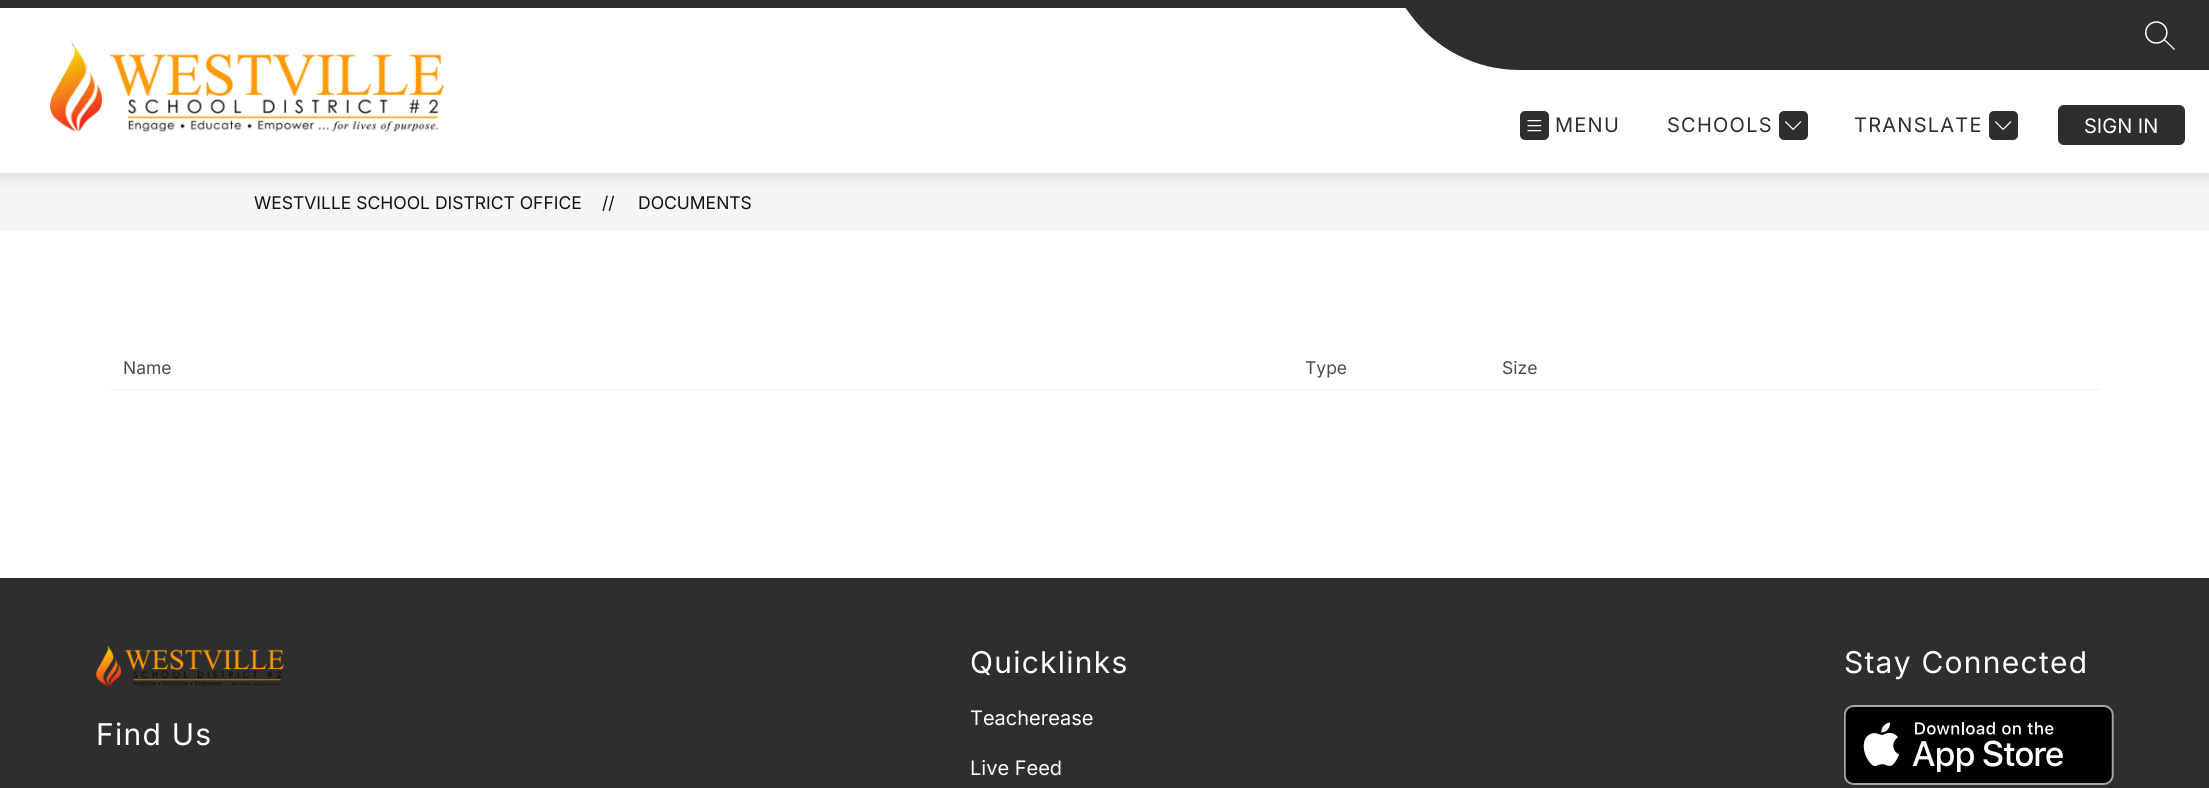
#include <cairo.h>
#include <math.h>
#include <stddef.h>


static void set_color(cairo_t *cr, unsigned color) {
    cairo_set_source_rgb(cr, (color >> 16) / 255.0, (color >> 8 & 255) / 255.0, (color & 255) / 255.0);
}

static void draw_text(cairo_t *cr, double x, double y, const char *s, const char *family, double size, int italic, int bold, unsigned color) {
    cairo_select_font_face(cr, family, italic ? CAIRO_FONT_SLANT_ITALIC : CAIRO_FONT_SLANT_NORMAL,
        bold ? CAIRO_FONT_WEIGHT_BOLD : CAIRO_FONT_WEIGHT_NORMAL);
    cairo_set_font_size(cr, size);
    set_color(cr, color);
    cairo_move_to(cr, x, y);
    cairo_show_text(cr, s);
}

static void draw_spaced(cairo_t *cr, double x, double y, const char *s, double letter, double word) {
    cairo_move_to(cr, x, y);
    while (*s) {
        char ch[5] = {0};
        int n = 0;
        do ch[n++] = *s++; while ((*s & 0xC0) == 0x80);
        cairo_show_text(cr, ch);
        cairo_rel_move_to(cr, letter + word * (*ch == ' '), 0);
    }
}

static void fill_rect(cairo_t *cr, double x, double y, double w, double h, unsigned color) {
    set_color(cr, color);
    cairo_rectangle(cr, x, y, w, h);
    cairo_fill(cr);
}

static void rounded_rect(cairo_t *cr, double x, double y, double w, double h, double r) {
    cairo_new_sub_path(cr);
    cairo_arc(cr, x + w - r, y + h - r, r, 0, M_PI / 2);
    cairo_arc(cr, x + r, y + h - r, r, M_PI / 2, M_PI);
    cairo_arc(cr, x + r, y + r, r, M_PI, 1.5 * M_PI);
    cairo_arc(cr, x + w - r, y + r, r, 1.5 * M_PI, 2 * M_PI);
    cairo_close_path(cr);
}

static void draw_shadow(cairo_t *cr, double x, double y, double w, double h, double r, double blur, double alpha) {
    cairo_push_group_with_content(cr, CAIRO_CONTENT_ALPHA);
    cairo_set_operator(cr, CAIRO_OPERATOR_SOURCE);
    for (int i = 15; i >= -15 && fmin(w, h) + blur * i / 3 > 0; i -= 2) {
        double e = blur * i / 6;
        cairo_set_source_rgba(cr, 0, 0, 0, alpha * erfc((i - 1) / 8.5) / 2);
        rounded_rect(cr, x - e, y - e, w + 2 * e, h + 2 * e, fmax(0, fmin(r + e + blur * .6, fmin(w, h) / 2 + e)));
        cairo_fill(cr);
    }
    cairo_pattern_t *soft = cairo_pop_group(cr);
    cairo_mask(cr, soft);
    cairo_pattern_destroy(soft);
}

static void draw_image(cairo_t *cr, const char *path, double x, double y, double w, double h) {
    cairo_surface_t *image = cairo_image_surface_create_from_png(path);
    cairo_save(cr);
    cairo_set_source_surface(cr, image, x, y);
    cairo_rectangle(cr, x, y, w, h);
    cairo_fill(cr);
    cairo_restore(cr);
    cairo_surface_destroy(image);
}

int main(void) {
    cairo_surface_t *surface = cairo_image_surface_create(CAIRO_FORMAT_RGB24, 2209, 788);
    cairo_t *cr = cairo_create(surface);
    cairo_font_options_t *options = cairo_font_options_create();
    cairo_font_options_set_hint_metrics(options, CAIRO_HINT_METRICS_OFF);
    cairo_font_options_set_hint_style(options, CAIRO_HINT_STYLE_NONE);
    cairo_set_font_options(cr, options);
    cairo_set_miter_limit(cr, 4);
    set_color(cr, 0xFFFFFF);
    cairo_paint(cr);
    fill_rect(cr, 0, 173, 2209, 58, 0xF5F5F5);
    set_color(cr, 0x000000);
    draw_shadow(cr, 0, 5, 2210, 173, 0, 6, 0.1);
    fill_rect(cr, 0, 8, 2209, 165, 0xFFFFFF);
    fill_rect(cr, 0, 0, 1406, 8, 0x2E2E2E);
    draw_image(cr, "assets/img1.png", 50, 41, 394, 91);
    fill_rect(cr, 1522, 0, 687, 70, 0x2E2E2E);
    cairo_new_path(cr);
    cairo_move_to(cr, 1519, 70);
    cairo_line_to(cr, 1522, 70);
    cairo_line_to(cr, 1522, 0);
    cairo_line_to(cr, 1403, 0);
    cairo_curve_to(cr, 1401, 0, 1401, 1, 1401, 2);
    cairo_line_to(cr, 1410, 14);
    cairo_curve_to(cr, 1435, 49, 1476, 70, 1519, 70);
    cairo_close_path(cr);
    cairo_fill(cr);
    draw_image(cr, "assets/img2.png", 2145, 21, 30, 29);
    draw_image(cr, "assets/img3.png", 1520, 111, 29, 29);
    cairo_select_font_face(cr, "Inter", CAIRO_FONT_SLANT_NORMAL, CAIRO_FONT_WEIGHT_NORMAL);
    cairo_set_font_size(cr, 20);
    draw_spaced(cr, 1555, 132, "MENU", 1.25, 0);
    draw_spaced(cr, 1667, 132, "SCHOOLS", 1.25, 0);
    draw_image(cr, "assets/img4.png", 1779, 111, 29, 29);
    draw_spaced(cr, 1854, 132, "TRANSLATE", 1.25, 0);
    draw_image(cr, "assets/img4.png", 1989, 111, 29, 29);
    rounded_rect(cr, 2058.5, 105.5, 126, 39, 5.5);
    cairo_fill_preserve(cr);
    cairo_set_line_width(cr, 1);
    cairo_stroke(cr);
    draw_text(cr, 2084, 133, "SIGN IN", "Inter", 20, 0, 0, 0xFFFFFF);
    draw_text(cr, 254, 209, "WESTVILLE SCHOOL DISTRICT OFFICE", "Inter", 17.5, 0, 0, 0x111111);
    draw_text(cr, 602, 209, "//", "Inter", 17.5, 0, 0, 0x111111);
    draw_text(cr, 638, 209, "DOCUMENTS", "Inter", 17.5, 0, 0, 0x111111);
    fill_rect(cr, 110, 389, 1990, 1, 0xF0F0F0);
    draw_text(cr, 123, 374, "Name", "Inter", 17.5, 0, 0, 0x4C4C4C);
    draw_text(cr, 1305, 374, "Type", "Inter", 17.5, 0, 0, 0x4C4C4C);
    draw_text(cr, 1502, 374, "Size", "Inter", 17.5, 0, 0, 0x4C4C4C);
    fill_rect(cr, 0, 578, 2209, 210, 0x2E2E2E);
    cairo_set_font_size(cr, 30);
    set_color(cr, 0xFFFFFF);
    draw_spaced(cr, 970, 673, "Quicklinks", 1.25, 0);
    draw_text(cr, 970, 725, "Teacherease", "Inter", 20, 0, 0, 0xFFFFFF);
    draw_text(cr, 970, 775, "Live Feed", "Inter", 20, 0, 0, 0xFFFFFF);
    cairo_set_font_size(cr, 30);
    draw_spaced(cr, 1844, 673, "Stay Connected", 1.25, 0);
    draw_image(cr, "assets/img5.png", 1844, 705, 270, 80);
    draw_image(cr, "assets/img6.png", 96, 645, 188, 42);
    draw_spaced(cr, 96, 745, "Find Us", 1.25, 0);
    cairo_surface_write_to_png(surface, "output.png");
    cairo_font_options_destroy(options);
    cairo_destroy(cr);
    cairo_surface_destroy(surface);
    return 0;
}
